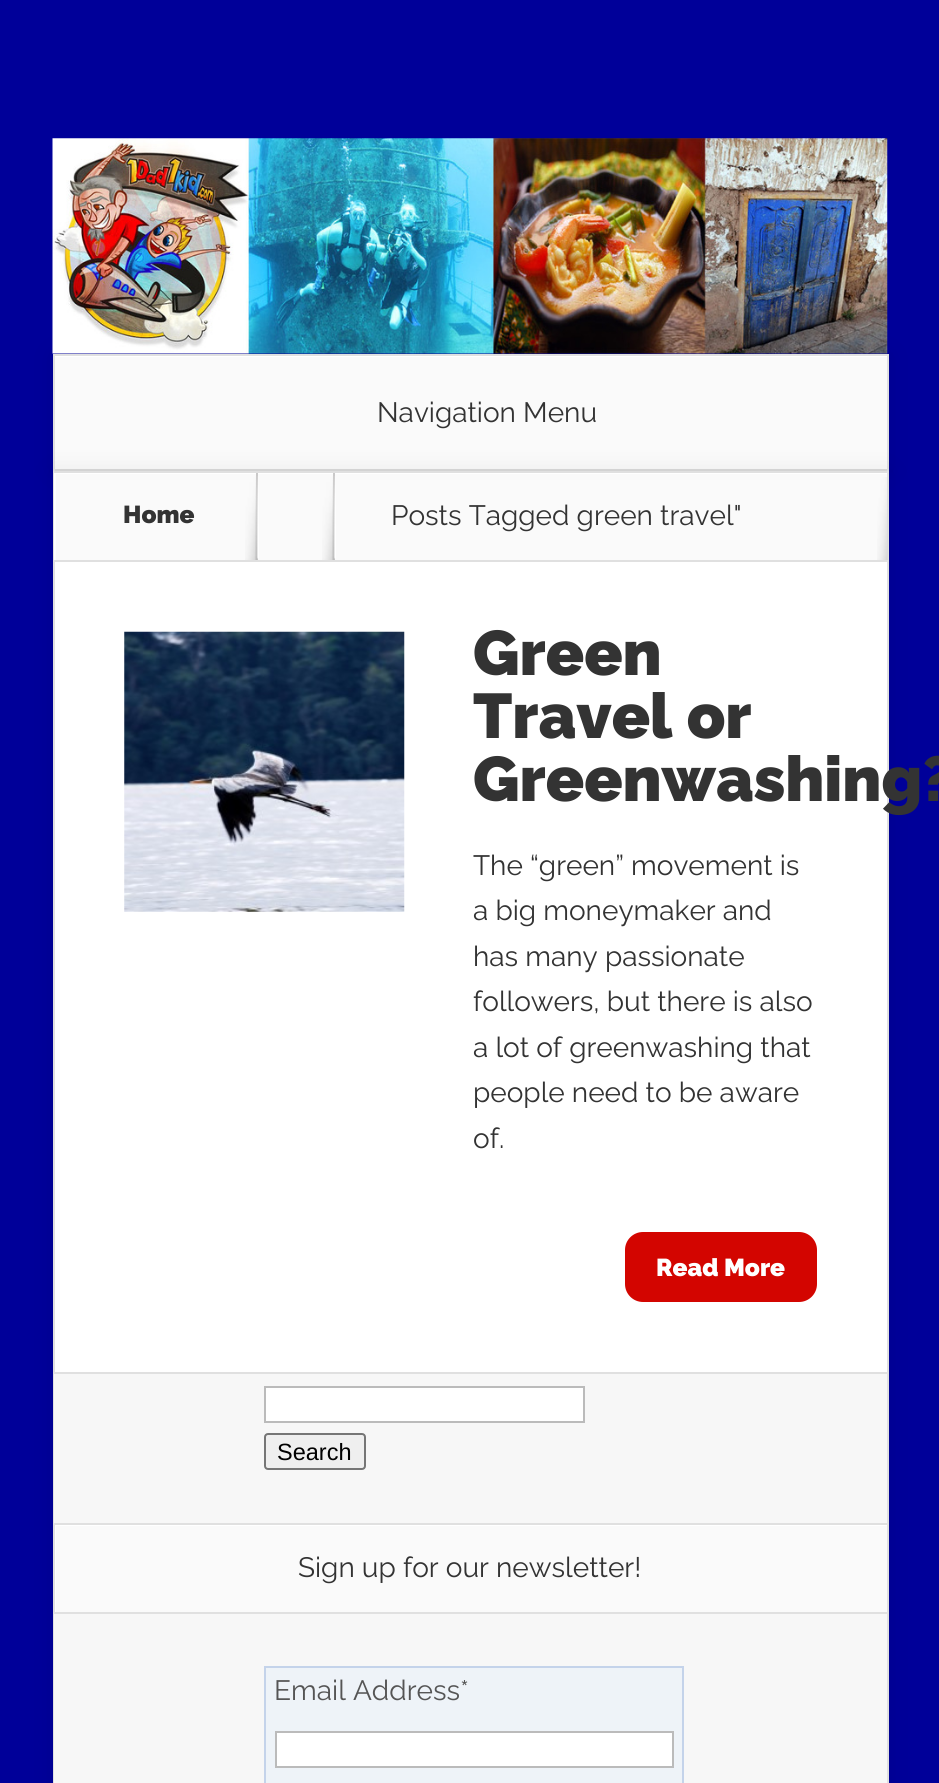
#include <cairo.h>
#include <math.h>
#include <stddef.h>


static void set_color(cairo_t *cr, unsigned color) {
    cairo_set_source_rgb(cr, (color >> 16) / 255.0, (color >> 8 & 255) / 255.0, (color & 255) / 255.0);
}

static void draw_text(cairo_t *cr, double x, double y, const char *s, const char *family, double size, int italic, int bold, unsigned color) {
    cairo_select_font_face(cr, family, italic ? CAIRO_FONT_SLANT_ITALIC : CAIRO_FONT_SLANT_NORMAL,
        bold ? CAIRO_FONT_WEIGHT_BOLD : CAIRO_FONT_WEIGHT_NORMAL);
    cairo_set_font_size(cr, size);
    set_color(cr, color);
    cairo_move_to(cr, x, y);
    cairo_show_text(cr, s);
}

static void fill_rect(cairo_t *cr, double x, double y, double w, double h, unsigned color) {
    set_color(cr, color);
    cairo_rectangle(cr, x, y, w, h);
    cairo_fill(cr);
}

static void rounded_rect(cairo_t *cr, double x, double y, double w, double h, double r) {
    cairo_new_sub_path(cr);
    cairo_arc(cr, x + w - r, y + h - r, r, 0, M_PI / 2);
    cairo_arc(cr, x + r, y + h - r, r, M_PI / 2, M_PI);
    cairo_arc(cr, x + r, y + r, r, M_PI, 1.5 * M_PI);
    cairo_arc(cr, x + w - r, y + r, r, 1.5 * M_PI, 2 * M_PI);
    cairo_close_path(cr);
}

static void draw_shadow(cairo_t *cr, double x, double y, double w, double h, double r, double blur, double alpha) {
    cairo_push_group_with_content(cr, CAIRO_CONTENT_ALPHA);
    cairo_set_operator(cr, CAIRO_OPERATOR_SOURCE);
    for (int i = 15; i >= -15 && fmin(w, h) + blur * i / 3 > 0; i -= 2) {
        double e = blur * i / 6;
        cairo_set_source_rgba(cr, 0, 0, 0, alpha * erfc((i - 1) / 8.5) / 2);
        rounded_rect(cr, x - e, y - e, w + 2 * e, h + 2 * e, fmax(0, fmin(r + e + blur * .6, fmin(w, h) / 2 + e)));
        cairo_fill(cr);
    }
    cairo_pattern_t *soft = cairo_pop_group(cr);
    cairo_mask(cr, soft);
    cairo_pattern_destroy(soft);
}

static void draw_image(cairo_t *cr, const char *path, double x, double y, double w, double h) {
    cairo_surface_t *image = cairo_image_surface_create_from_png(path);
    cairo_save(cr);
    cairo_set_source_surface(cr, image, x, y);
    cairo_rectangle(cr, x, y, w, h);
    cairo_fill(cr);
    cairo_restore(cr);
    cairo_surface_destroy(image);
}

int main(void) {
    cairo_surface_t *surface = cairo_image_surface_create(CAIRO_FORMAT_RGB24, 939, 1783);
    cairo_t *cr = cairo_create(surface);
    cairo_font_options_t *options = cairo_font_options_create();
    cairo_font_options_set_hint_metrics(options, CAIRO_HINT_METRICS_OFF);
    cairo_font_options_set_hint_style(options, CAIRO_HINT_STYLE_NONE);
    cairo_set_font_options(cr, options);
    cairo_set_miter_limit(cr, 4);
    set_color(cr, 0x000099);
    cairo_paint(cr);
    set_color(cr, 0x000000);
    draw_shadow(cr, 53, 354, 836, 117, 0, 13, 0.07);
    draw_image(cr, "assets/img1.png", 52, 138, 836, 216);
    fill_rect(cr, 55, 357, 832, 112, 0xFAFAFA);
    fill_rect(cr, 54, 469, 833, 2, 0xDADADA);
    fill_rect(cr, 54, 356, 833, 1, 0xFFFFFF);
    fill_rect(cr, 53, 354, 836, 2, 0xE0E0E0);
    fill_rect(cr, 887, 354, 2, 117, 0xE0E0E0);
    fill_rect(cr, 53, 354, 2, 117, 0xE0E0E0);
    draw_text(cr, 377, 422, "Navigation Menu", "Raleway", 28, 0, 0, 0x333333);
    set_color(cr, 0x000000);
    draw_shadow(cr, 53, 471, 836, 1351, 0, 13, 0.07);
    fill_rect(cr, 55, 562, 832, 810, 0xFFFFFF);
    fill_rect(cr, 887, 471, 2, 1312, 0xE0E0E0);
    fill_rect(cr, 53, 471, 2, 1312, 0xE0E0E0);
    fill_rect(cr, 56, 474, 831, 86, 0xFAFAFA);
    cairo_save(cr);
    cairo_rectangle(cr, 54, 473, 833, 87);
    cairo_clip(cr);
    set_color(cr, 0xFFFFFF);
    cairo_set_fill_rule(cr, CAIRO_FILL_RULE_EVEN_ODD);
    cairo_new_path(cr);
    cairo_move_to(cr, -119, 299);
    cairo_line_to(cr, 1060, 299);
    cairo_line_to(cr, 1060, 733);
    cairo_line_to(cr, -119, 733);
    cairo_close_path(cr);
    cairo_move_to(cr, 56, 474);
    cairo_line_to(cr, 889, 474);
    cairo_line_to(cr, 889, 562);
    cairo_line_to(cr, 56, 562);
    cairo_close_path(cr);
    cairo_fill(cr);
    cairo_restore(cr);
    fill_rect(cr, 54, 471, 833, 2, 0xE0E0E0);
    fill_rect(cr, 54, 560, 833, 2, 0xE0E0E0);
    draw_text(cr, 123, 523, "Home", "Raleway Black", 24.5, 0, 0, 0x333333);
    fill_rect(cr, 256, 473, 2, 87, 0xCAC9C9);
    draw_image(cr, "assets/img2.png", 245, 476, 14, 84);
    fill_rect(cr, 333, 473, 2, 87, 0xCAC9C9);
    draw_image(cr, "assets/img2.png", 322, 476, 14, 84);
    draw_text(cr, 391, 525, "Posts Tagged green travel\"", "Raleway", 28, 0, 0, 0x333333);
    draw_image(cr, "assets/img3.png", 877, 477, 11, 83);
    fill_rect(cr, 54, 1372, 833, 2, 0xE0E0E0);
    draw_image(cr, "assets/img4.png", 124, 631, 281, 281);
    draw_text(cr, 473, 675, "Green", "Raleway Black", 63, 0, 0, 0x333333);
    draw_text(cr, 473, 738, "Travel or", "Raleway Black", 63, 0, 0, 0x333333);
    draw_text(cr, 473, 801, "Greenwashing?", "Raleway Black", 63, 0, 0, 0x333333);
    draw_text(cr, 473, 875, "The “green” movement is", "Raleway", 28, 0, 0, 0x333333);
    draw_text(cr, 473, 920, "a big moneymaker and", "Raleway", 28, 0, 0, 0x333333);
    draw_text(cr, 473, 966, "has many passionate", "Raleway", 28, 0, 0, 0x333333);
    draw_text(cr, 473, 1011, "followers, but there is also", "Raleway", 28, 0, 0, 0x333333);
    draw_text(cr, 473, 1057, "a lot of greenwashing that", "Raleway", 28, 0, 0, 0x333333);
    draw_text(cr, 473, 1102, "people need to be aware", "Raleway", 28, 0, 0, 0x333333);
    draw_text(cr, 473, 1148, "of.", "Raleway", 28, 0, 0, 0x333333);
    set_color(cr, 0xD30500);
    rounded_rect(cr, 625, 1232, 192, 70, 18);
    cairo_fill(cr);
    draw_text(cr, 656, 1276, "Read More", "Raleway Black", 24.5, 0, 0, 0xFFFFFF);
    fill_rect(cr, 54, 1374, 833, 409, 0xF7F7F7);
    set_color(cr, 0xFFFFFF);
    cairo_rectangle(cr, 265, 1387, 319, 35);
    cairo_fill_preserve(cr);
    set_color(cr, 0xBBBBBB);
    cairo_stroke(cr);
    set_color(cr, 0xEFEFEF);
    rounded_rect(cr, 265, 1434, 100, 35, 3);
    cairo_fill_preserve(cr);
    set_color(cr, 0x767676);
    cairo_stroke(cr);
    draw_text(cr, 277, 1460, "Search", "Liberation Sans", 23.5, 0, 0, 0x000000);
    fill_rect(cr, 56, 1526, 831, 86, 0xFAFAFA);
    cairo_save(cr);
    cairo_rectangle(cr, 54, 1524, 833, 88);
    cairo_clip(cr);
    set_color(cr, 0xFFFFFF);
    cairo_set_fill_rule(cr, CAIRO_FILL_RULE_EVEN_ODD);
    cairo_new_path(cr);
    cairo_move_to(cr, -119, 1351);
    cairo_line_to(cr, 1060, 1351);
    cairo_line_to(cr, 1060, 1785);
    cairo_line_to(cr, -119, 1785);
    cairo_close_path(cr);
    cairo_move_to(cr, 56, 1526);
    cairo_line_to(cr, 889, 1526);
    cairo_line_to(cr, 889, 1614);
    cairo_line_to(cr, 56, 1614);
    cairo_close_path(cr);
    cairo_fill(cr);
    cairo_restore(cr);
    fill_rect(cr, 53, 1523, 834, 2, 0xE0E0E0);
    fill_rect(cr, 53, 1612, 834, 2, 0xE0E0E0);
    fill_rect(cr, 54, 1523, 1, 91, 0xE0E0E0);
    draw_text(cr, 298, 1577, "Sign up for our newsletter!", "Raleway", 28, 0, 0, 0x333333);
    set_color(cr, 0xEEF3F8);
    cairo_rectangle(cr, 265, 1667, 418, 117);
    cairo_fill_preserve(cr);
    set_color(cr, 0xC4D3EA);
    cairo_stroke(cr);
    draw_text(cr, 274, 1700, "Email Address*", "Raleway", 28, 0, 0, 0x555555);
    set_color(cr, 0xFFFFFF);
    cairo_rectangle(cr, 276, 1732, 397, 35);
    cairo_fill_preserve(cr);
    set_color(cr, 0xBBBBBB);
    cairo_stroke(cr);
    cairo_surface_write_to_png(surface, "output.png");
    cairo_font_options_destroy(options);
    cairo_destroy(cr);
    cairo_surface_destroy(surface);
    return 0;
}
